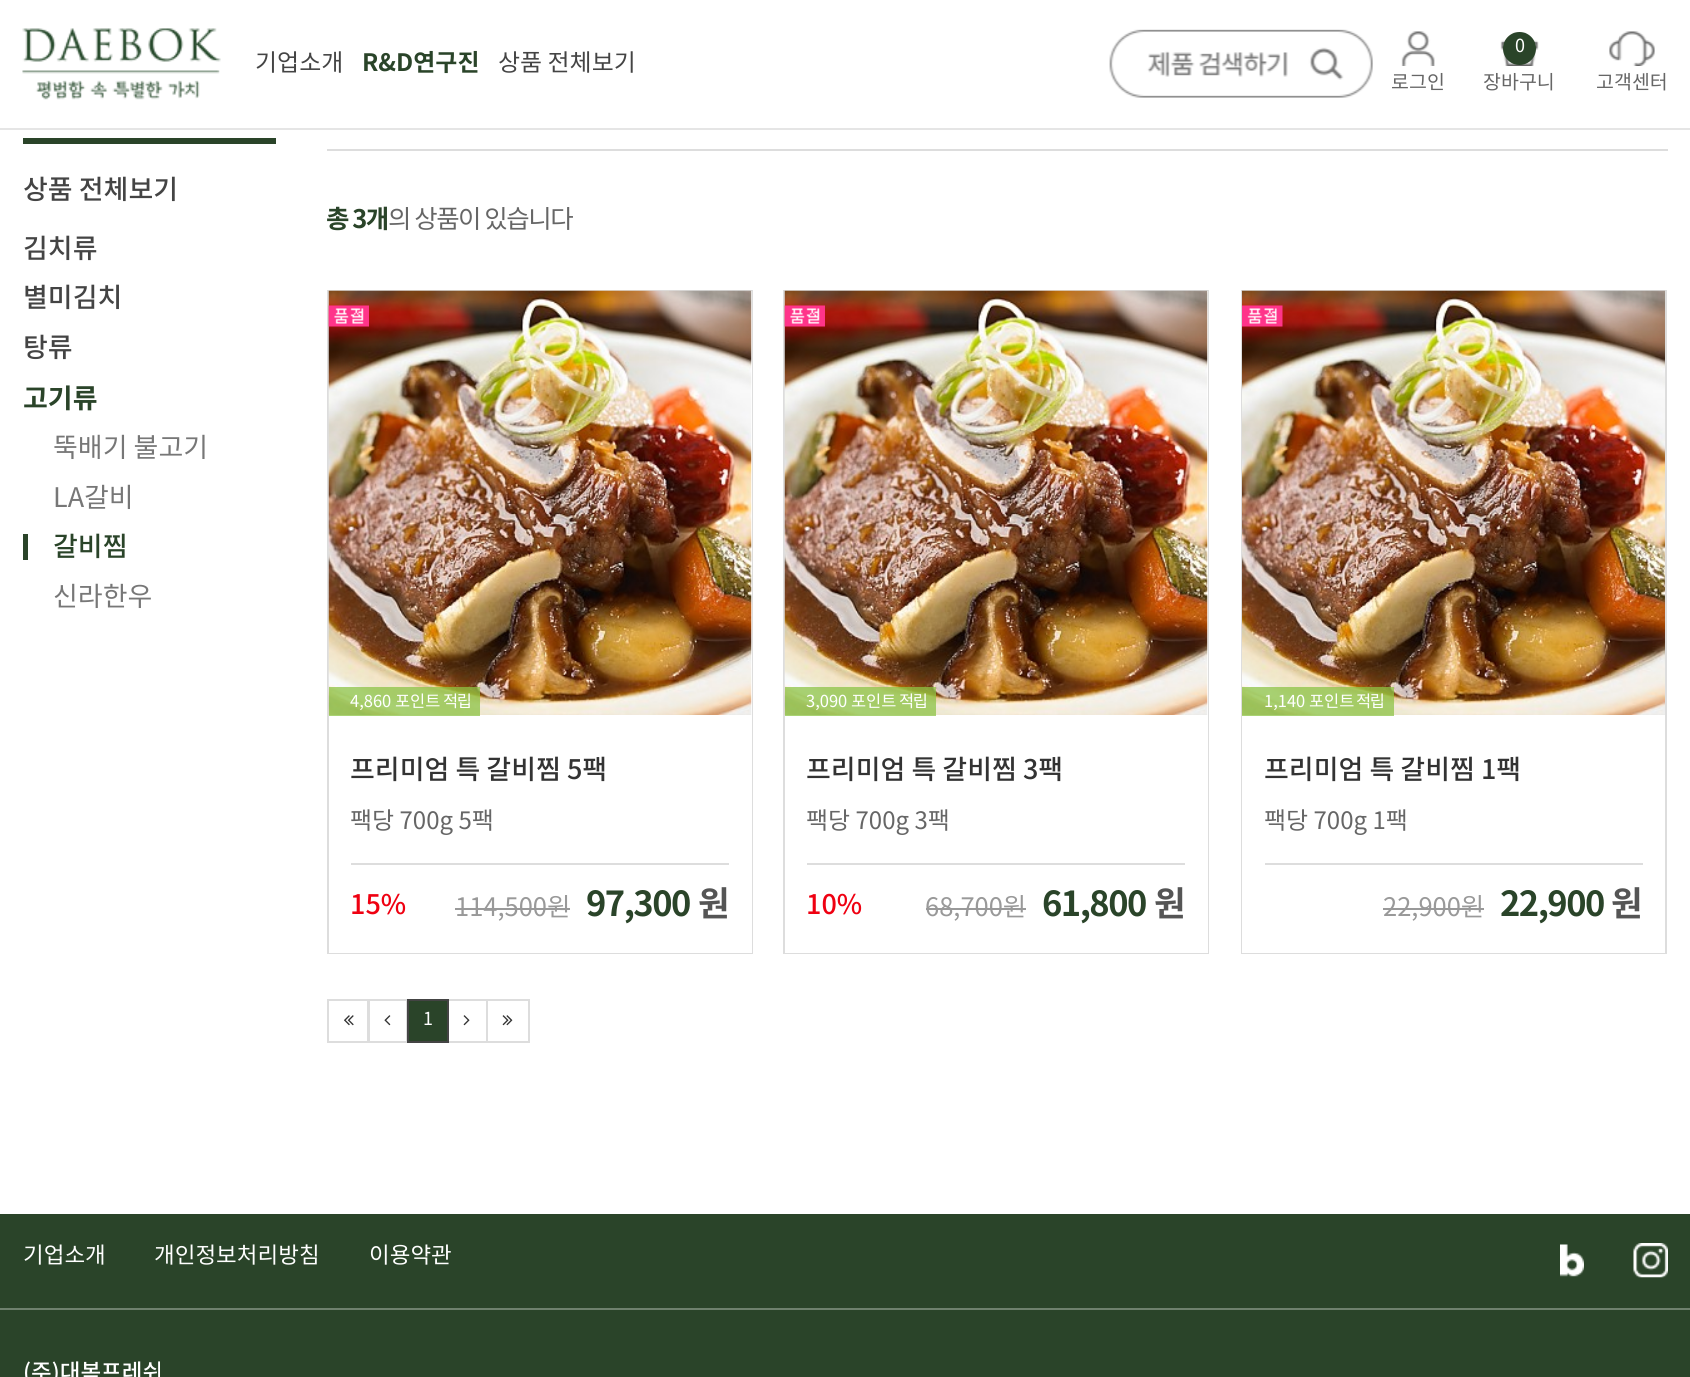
#include <cairo.h>
#include <math.h>
#include <stddef.h>


static void set_color(cairo_t *cr, unsigned color) {
    cairo_set_source_rgb(cr, (color >> 16) / 255.0, (color >> 8 & 255) / 255.0, (color & 255) / 255.0);
}

static void draw_text(cairo_t *cr, double x, double y, const char *s, const char *family, double size, int italic, int bold, unsigned color) {
    cairo_select_font_face(cr, family, italic ? CAIRO_FONT_SLANT_ITALIC : CAIRO_FONT_SLANT_NORMAL,
        bold ? CAIRO_FONT_WEIGHT_BOLD : CAIRO_FONT_WEIGHT_NORMAL);
    cairo_set_font_size(cr, size);
    set_color(cr, color);
    cairo_move_to(cr, x, y);
    cairo_show_text(cr, s);
}

static void draw_spaced(cairo_t *cr, double x, double y, const char *s, double letter, double word) {
    cairo_move_to(cr, x, y);
    while (*s) {
        char ch[5] = {0};
        int n = 0;
        do ch[n++] = *s++; while ((*s & 0xC0) == 0x80);
        cairo_show_text(cr, ch);
        cairo_rel_move_to(cr, letter + word * (*ch == ' '), 0);
    }
}

static void fill_rect(cairo_t *cr, double x, double y, double w, double h, unsigned color) {
    set_color(cr, color);
    cairo_rectangle(cr, x, y, w, h);
    cairo_fill(cr);
}

static void draw_image(cairo_t *cr, const char *path, double x, double y, double w, double h) {
    cairo_surface_t *image = cairo_image_surface_create_from_png(path);
    cairo_save(cr);
    cairo_set_source_surface(cr, image, x, y);
    cairo_rectangle(cr, x, y, w, h);
    cairo_fill(cr);
    cairo_restore(cr);
    cairo_surface_destroy(image);
}

int main(void) {
    cairo_surface_t *surface = cairo_image_surface_create(CAIRO_FORMAT_RGB24, 1690, 1377);
    cairo_t *cr = cairo_create(surface);
    cairo_font_options_t *options = cairo_font_options_create();
    cairo_font_options_set_hint_metrics(options, CAIRO_HINT_METRICS_OFF);
    cairo_font_options_set_hint_style(options, CAIRO_HINT_STYLE_NONE);
    cairo_set_font_options(cr, options);
    cairo_set_miter_limit(cr, 4);
    set_color(cr, 0xFFFFFF);
    cairo_paint(cr);
    fill_rect(cr, 0, 128, 1690, 2, 0xE5E5E5);
    draw_image(cr, "assets/img1.png", 22, 28, 199, 72);
    draw_text(cr, 255, 71, "기업소개", "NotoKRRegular", 24, 0, 0, 0x444444);
    draw_text(cr, 362, 71, "R&D연구진", "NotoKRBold", 24, 0, 1, 0x2A4429);
    draw_text(cr, 498, 71, "상품 전체보기", "NotoKRRegular", 24, 0, 0, 0x444444);
    draw_image(cr, "assets/img2.png", 1109, 29, 264, 69);
    draw_image(cr, "assets/img3.png", 1401, 31, 34, 35);
    draw_text(cr, 1391, 89, "로그인", "NotoKRRegular", 19.5, 0, 0, 0x666666);
    draw_image(cr, "assets/img4.png", 1500, 32, 39, 34);
    set_color(cr, 0x2A4429);
    cairo_arc(cr, 1519.5, 48.5, 16.5, 0, 2 * M_PI);
    cairo_fill(cr);
    draw_text(cr, 1515, 52, "0", "NotoKRRegular", 18, 0, 0, 0xFFFFFF);
    draw_text(cr, 1483, 89, "장바구니", "NotoKRRegular", 19.5, 0, 0, 0x666666);
    draw_image(cr, "assets/img5.png", 1609, 31, 46, 35);
    draw_text(cr, 1596, 89, "고객센터", "NotoKRRegular", 19.5, 0, 0, 0x666666);
    fill_rect(cr, 23, 138, 253, 6, 0x2A4429);
    draw_text(cr, 23, 199, "상품 전체보기", "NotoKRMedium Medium", 27, 0, 0, 0x444444);
    draw_text(cr, 23, 258, "김치류", "NotoKRMedium Medium", 27, 0, 0, 0x444444);
    draw_text(cr, 23, 307, "별미김치", "NotoKRMedium Medium", 27, 0, 0, 0x444444);
    draw_text(cr, 23, 357, "탕류", "NotoKRMedium Medium", 27, 0, 0, 0x444444);
    draw_text(cr, 23, 408, "고기류", "NotoKRBold", 27, 0, 1, 0x2A4429);
    draw_text(cr, 53, 457, "뚝배기 불고기", "NotoKRRegular", 27, 0, 0, 0x777777);
    draw_text(cr, 53, 507, "LA갈비", "NotoKRRegular", 27, 0, 0, 0x777777);
    fill_rect(cr, 23, 534, 5, 26, 0x2A4429);
    draw_text(cr, 53, 556, "갈비찜", "NotoKRMedium Medium", 27, 0, 0, 0x2A4429);
    draw_text(cr, 53, 606, "신라한우", "NotoKRRegular", 27, 0, 0, 0x777777);
    fill_rect(cr, 327, 149, 1341, 2, 0xDDDDDD);
    cairo_select_font_face(cr, "NotoKRBold", CAIRO_FONT_SLANT_NORMAL, CAIRO_FONT_WEIGHT_BOLD);
    cairo_set_font_size(cr, 25.5);
    set_color(cr, 0x2A4429);
    draw_spaced(cr, 326, 228, "총 3개", -1.5, 0);
    cairo_select_font_face(cr, "NotoKRRegular", CAIRO_FONT_SLANT_NORMAL, CAIRO_FONT_WEIGHT_NORMAL);
    set_color(cr, 0x666666);
    draw_spaced(cr, 388, 228, "의 상품이 있습니다", -1.5, 0);
    cairo_rectangle(cr, 328, 291, 424, 662);
    set_color(cr, 0xDDDDDD);
    cairo_stroke(cr);
    fill_rect(cr, 329, 291, 423, 662, 0xFFFFFF);
    draw_image(cr, "assets/img6.png", 328, 290, 424, 425);
    draw_image(cr, "assets/img7.png", 328, 305, 41, 22);
    cairo_set_source_rgba(cr, 0.549, 0.765, 0.275, 0.75);
    cairo_rectangle(cr, 329, 687, 151, 29);
    cairo_fill(cr);
    draw_text(cr, 350, 707, "4,860 포인트", "NotoKRRegular", 16.5, 0, 0, 0xFFFFFF);
    draw_spaced(cr, 443, 707, "적립", -1.5, 0);
    fill_rect(cr, 351, 863, 378, 2, 0xDDDDDD);
    draw_text(cr, 350, 779, "프리미엄 특 갈비찜 5팩", "NotoKRMedium Medium", 27, 0, 0, 0x333333);
    draw_text(cr, 350, 829, "팩당 700g 5팩", "NotoKRRegular", 24, 0, 0, 0x666666);
    draw_text(cr, 350, 914, "15%", "NotoKRMedium Medium", 27, 0, 0, 0xEF0011);
    draw_text(cr, 455, 916, "114,500원", "NotoKRRegular", 25.5, 0, 0, 0x999999);
    fill_rect(cr, 455, 908, 115, 2, 0x999999);
    cairo_select_font_face(cr, "NotoKRBold", CAIRO_FONT_SLANT_NORMAL, CAIRO_FONT_WEIGHT_BOLD);
    cairo_set_font_size(cr, 34.5);
    set_color(cr, 0x2A4429);
    draw_spaced(cr, 586, 916, "97,300", -1.5, 0);
    draw_text(cr, 698, 916, "원", "NotoKRBold", 34.5, 0, 1, 0x555555);
    cairo_rectangle(cr, 784, 291, 424, 662);
    set_color(cr, 0xDDDDDD);
    cairo_stroke(cr);
    fill_rect(cr, 785, 291, 423, 662, 0xFFFFFF);
    draw_image(cr, "assets/img6.png", 784, 290, 424, 425);
    draw_image(cr, "assets/img7.png", 784, 305, 41, 22);
    cairo_set_source_rgba(cr, 0.549, 0.765, 0.275, 0.75);
    cairo_rectangle(cr, 785, 687, 151, 29);
    cairo_fill(cr);
    draw_text(cr, 806, 707, "3,090 포인트", "NotoKRRegular", 16.5, 0, 0, 0xFFFFFF);
    draw_spaced(cr, 899, 707, "적립", -1.5, 0);
    fill_rect(cr, 807, 863, 378, 2, 0xDDDDDD);
    draw_text(cr, 806, 779, "프리미엄 특 갈비찜 3팩", "NotoKRMedium Medium", 27, 0, 0, 0x333333);
    draw_text(cr, 806, 829, "팩당 700g 3팩", "NotoKRRegular", 24, 0, 0, 0x666666);
    draw_text(cr, 806, 914, "10%", "NotoKRMedium Medium", 27, 0, 0, 0xEF0011);
    draw_text(cr, 925, 916, "68,700원", "NotoKRRegular", 25.5, 0, 0, 0x999999);
    fill_rect(cr, 926, 908, 100, 2, 0x999999);
    cairo_select_font_face(cr, "NotoKRBold", CAIRO_FONT_SLANT_NORMAL, CAIRO_FONT_WEIGHT_BOLD);
    cairo_set_font_size(cr, 34.5);
    set_color(cr, 0x2A4429);
    draw_spaced(cr, 1042, 916, "61,800", -1.5, 0);
    draw_text(cr, 1154, 916, "원", "NotoKRBold", 34.5, 0, 1, 0x555555);
    cairo_rectangle(cr, 1242, 291, 424, 662);
    set_color(cr, 0xDDDDDD);
    cairo_stroke(cr);
    fill_rect(cr, 1242, 715, 423, 238, 0xFFFFFF);
    draw_image(cr, "assets/img8.png", 1242, 290, 423, 425);
    draw_image(cr, "assets/img9.png", 1242, 305, 41, 22);
    cairo_set_source_rgba(cr, 0.549, 0.765, 0.275, 0.75);
    cairo_rectangle(cr, 1242, 687, 152, 29);
    cairo_fill(cr);
    draw_text(cr, 1264, 707, "1,140 포인트", "NotoKRRegular", 16.5, 0, 0, 0xFFFFFF);
    draw_spaced(cr, 1356, 707, "적립", -1.5, 0);
    fill_rect(cr, 1265, 863, 378, 2, 0xDDDDDD);
    draw_text(cr, 1264, 779, "프리미엄 특 갈비찜 1팩", "NotoKRMedium Medium", 27, 0, 0, 0x333333);
    draw_text(cr, 1264, 829, "팩당 700g 1팩", "NotoKRRegular", 24, 0, 0, 0x666666);
    draw_text(cr, 1383, 916, "22,900원", "NotoKRRegular", 25.5, 0, 0, 0x999999);
    fill_rect(cr, 1383, 908, 101, 2, 0x999999);
    cairo_select_font_face(cr, "NotoKRBold", CAIRO_FONT_SLANT_NORMAL, CAIRO_FONT_WEIGHT_BOLD);
    cairo_set_font_size(cr, 34.5);
    set_color(cr, 0x2A4429);
    draw_spaced(cr, 1500, 916, "22,900", -1.5, 0);
    draw_text(cr, 1611, 916, "원", "NotoKRBold", 34.5, 0, 1, 0x555555);
    cairo_rectangle(cr, 328, 1000, 40, 42);
    set_color(cr, 0xDDDDDD);
    cairo_stroke(cr);
    draw_image(cr, "assets/img10.png", 344, 1015, 10, 11);
    cairo_rectangle(cr, 369, 1000, 38, 42);
    cairo_stroke(cr);
    draw_image(cr, "assets/img11.png", 384, 1015, 7, 11);
    cairo_rectangle(cr, 448, 1000, 39, 42);
    cairo_stroke(cr);
    set_color(cr, 0x2A4429);
    cairo_rectangle(cr, 408, 1000, 40, 42);
    cairo_fill_preserve(cr);
    set_color(cr, 0x444444);
    cairo_stroke(cr);
    draw_text(cr, 423, 1025, "1", "NotoKRRegular", 18, 0, 0, 0xFFFFFF);
    draw_image(cr, "assets/img12.png", 463, 1015, 7, 11);
    cairo_rectangle(cr, 487, 1000, 42, 42);
    set_color(cr, 0xDDDDDD);
    cairo_stroke(cr);
    draw_image(cr, "assets/img13.png", 502, 1015, 11, 11);
    fill_rect(cr, 0, 1214, 1690, 163, 0x2A4429);
    fill_rect(cr, 0, 1308, 1690, 2, 0x6E816D);
    draw_text(cr, 23, 1263, "기업소개", "NotoKRRegular", 22.5, 0, 0, 0xFFFFFF);
    draw_text(cr, 154, 1263, "개인정보처리방침", "NotoKRRegular", 22.5, 0, 0, 0xFFFFFF);
    draw_text(cr, 369, 1263, "이용약관", "NotoKRRegular", 22.5, 0, 0, 0xFFFFFF);
    draw_image(cr, "assets/img14.png", 1560, 1244, 24, 33);
    draw_image(cr, "assets/img15.png", 1633, 1243, 35, 35);
    draw_text(cr, 23, 1380, "(주)대복프레쉬", "NotoKRMedium Medium", 22.5, 0, 0, 0xFFFFFF);
    cairo_surface_write_to_png(surface, "output.png");
    cairo_font_options_destroy(options);
    cairo_destroy(cr);
    cairo_surface_destroy(surface);
    return 0;
}
